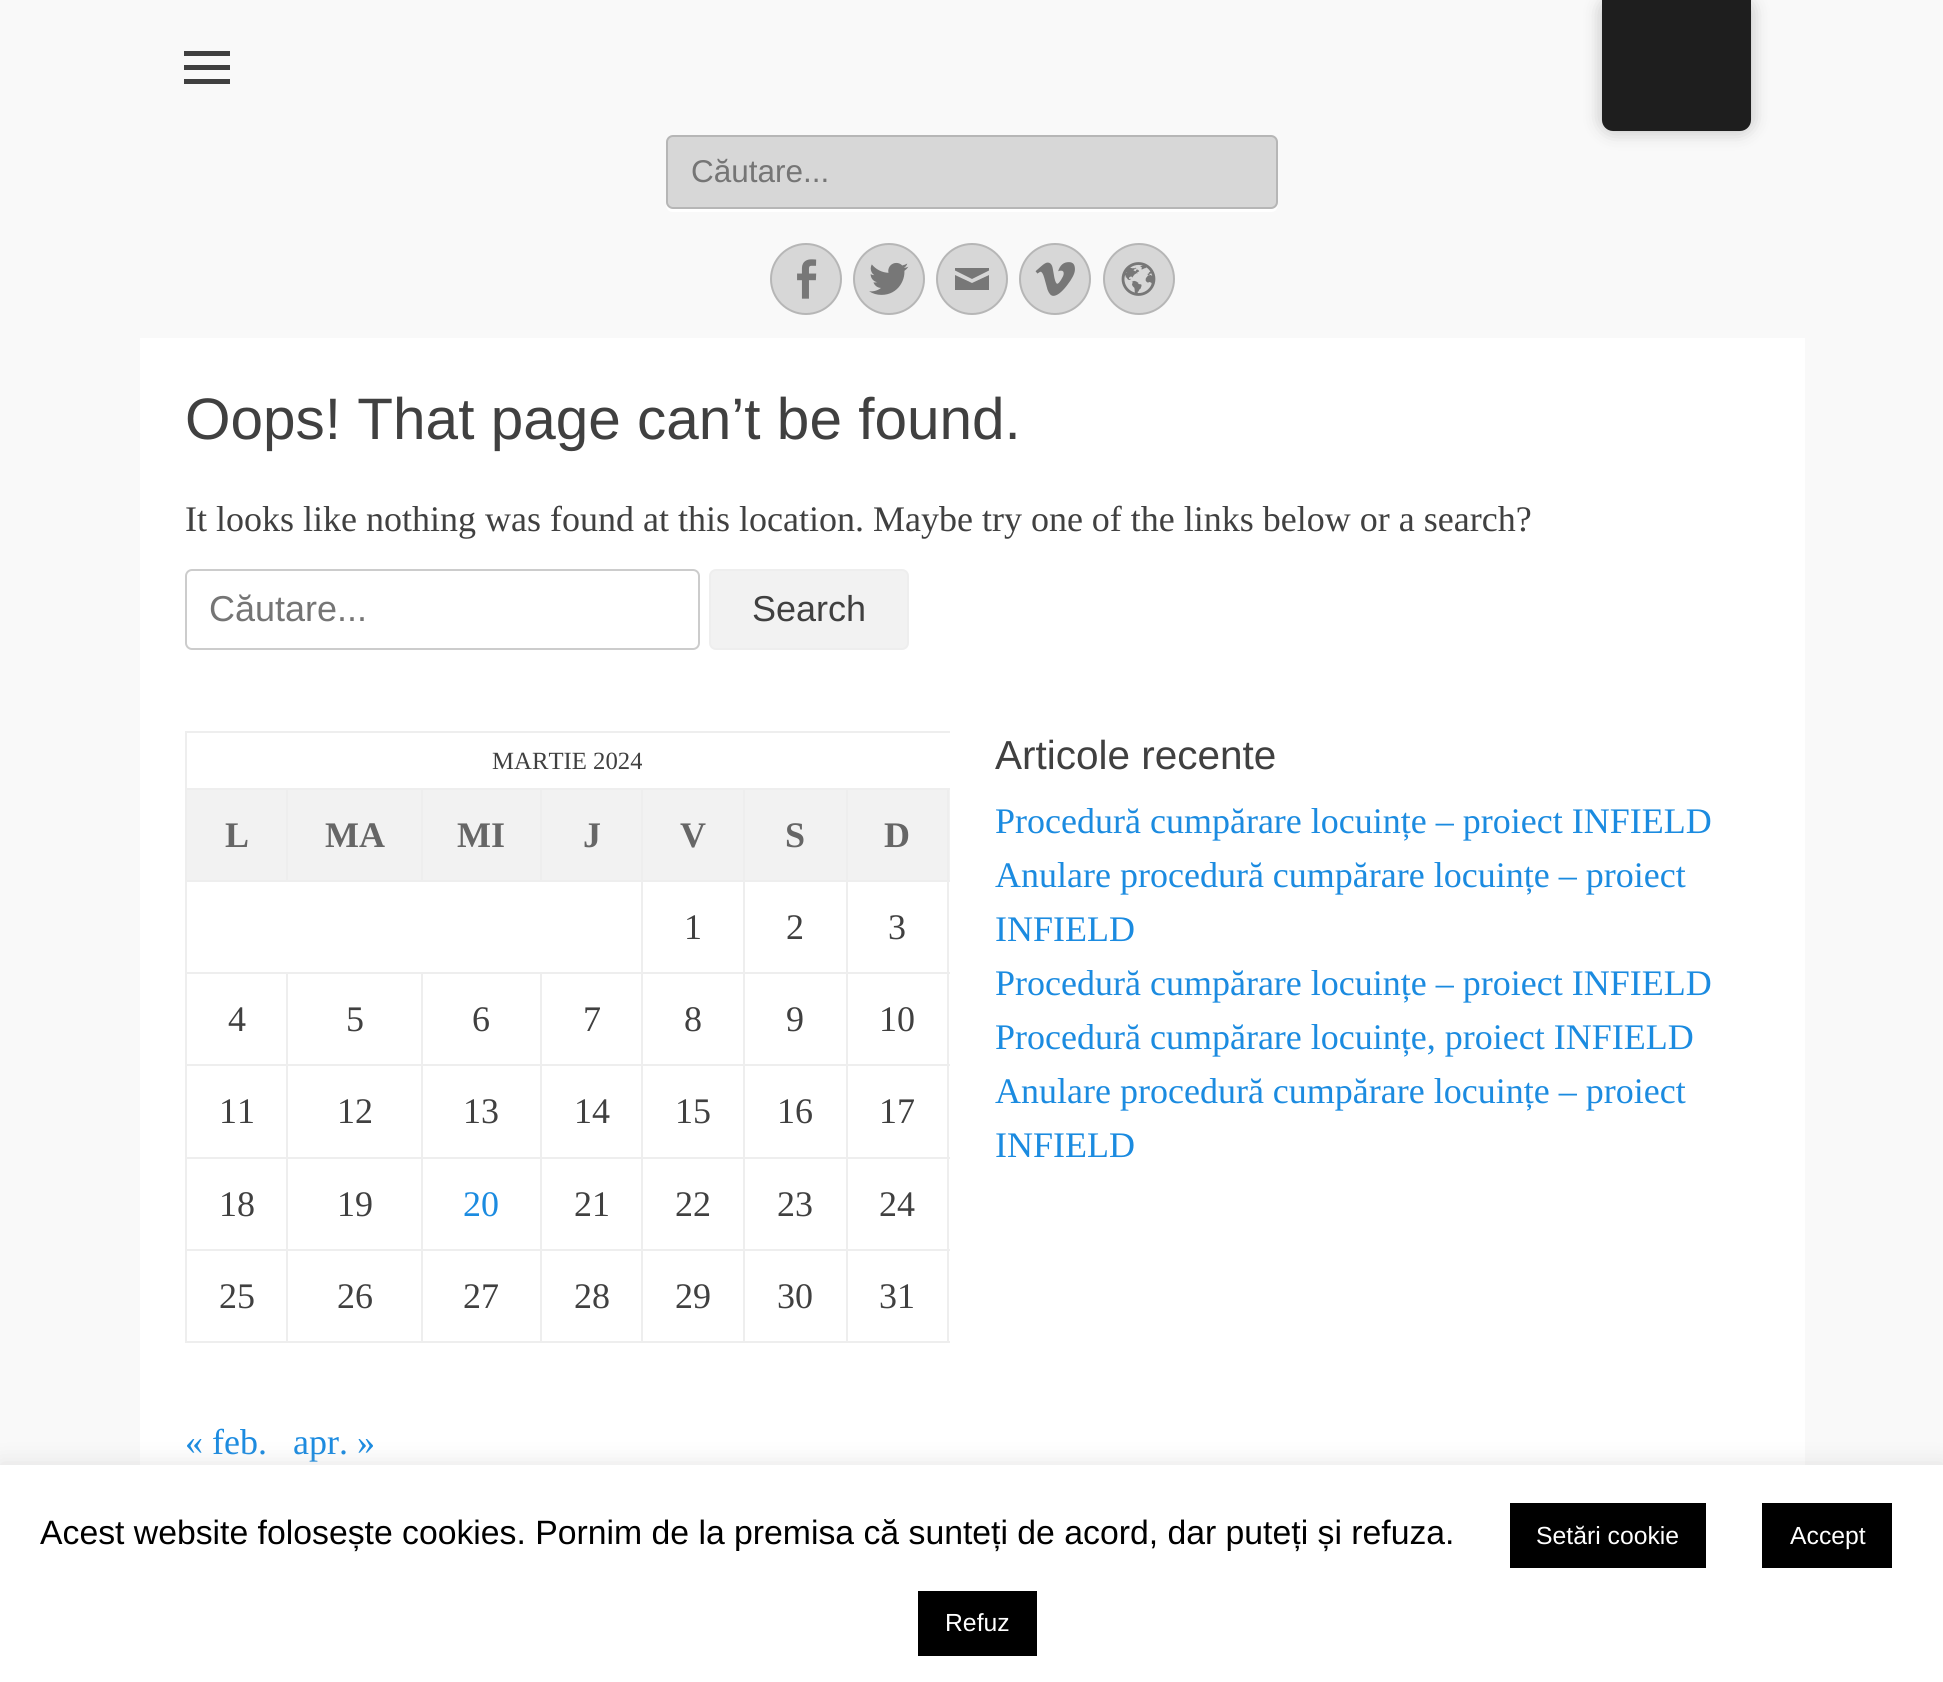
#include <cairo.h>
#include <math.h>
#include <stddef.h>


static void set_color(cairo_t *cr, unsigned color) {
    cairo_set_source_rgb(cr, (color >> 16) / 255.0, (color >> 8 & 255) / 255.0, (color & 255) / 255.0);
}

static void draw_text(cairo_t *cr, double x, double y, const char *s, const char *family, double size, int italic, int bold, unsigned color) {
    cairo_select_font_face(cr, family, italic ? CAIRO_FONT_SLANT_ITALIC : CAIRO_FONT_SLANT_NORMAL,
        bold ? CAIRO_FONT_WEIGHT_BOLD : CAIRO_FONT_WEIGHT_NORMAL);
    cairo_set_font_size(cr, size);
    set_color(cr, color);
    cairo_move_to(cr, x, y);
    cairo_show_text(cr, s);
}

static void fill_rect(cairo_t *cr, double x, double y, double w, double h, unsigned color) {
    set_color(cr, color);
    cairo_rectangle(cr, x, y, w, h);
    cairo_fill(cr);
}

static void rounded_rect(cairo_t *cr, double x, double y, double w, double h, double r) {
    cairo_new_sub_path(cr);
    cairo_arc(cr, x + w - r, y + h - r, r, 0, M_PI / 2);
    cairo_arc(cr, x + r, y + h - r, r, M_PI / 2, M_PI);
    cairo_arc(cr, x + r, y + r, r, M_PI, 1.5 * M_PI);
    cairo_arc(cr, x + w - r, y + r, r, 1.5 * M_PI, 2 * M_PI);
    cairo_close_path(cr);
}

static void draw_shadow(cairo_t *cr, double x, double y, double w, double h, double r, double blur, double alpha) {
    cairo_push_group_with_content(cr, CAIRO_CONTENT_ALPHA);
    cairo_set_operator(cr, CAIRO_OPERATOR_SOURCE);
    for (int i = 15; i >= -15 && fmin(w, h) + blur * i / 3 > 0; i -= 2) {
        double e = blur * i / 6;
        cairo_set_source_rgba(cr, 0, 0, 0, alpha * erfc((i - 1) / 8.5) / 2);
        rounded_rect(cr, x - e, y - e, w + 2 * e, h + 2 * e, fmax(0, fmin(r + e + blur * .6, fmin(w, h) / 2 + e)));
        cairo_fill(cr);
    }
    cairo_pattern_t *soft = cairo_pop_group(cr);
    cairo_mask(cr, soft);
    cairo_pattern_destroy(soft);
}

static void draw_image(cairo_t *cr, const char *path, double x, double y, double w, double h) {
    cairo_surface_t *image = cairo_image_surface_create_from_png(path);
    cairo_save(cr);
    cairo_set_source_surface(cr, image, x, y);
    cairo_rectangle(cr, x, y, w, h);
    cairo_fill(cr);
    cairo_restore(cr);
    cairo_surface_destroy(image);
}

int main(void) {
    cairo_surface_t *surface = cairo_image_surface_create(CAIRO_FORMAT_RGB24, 1943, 1682);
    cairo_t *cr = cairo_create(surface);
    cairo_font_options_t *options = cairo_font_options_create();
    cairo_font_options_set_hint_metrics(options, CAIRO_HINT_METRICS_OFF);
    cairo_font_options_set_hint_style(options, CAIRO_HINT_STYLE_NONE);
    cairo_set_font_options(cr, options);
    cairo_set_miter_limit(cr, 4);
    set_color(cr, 0xF9F9F9);
    cairo_paint(cr);
    set_color(cr, 0x000000);
    draw_shadow(cr, 1602, 0, 149, 131, 11, 9, 0.25);
    set_color(cr, 0x1E1E1E);
    cairo_new_path(cr);
    cairo_move_to(cr, 1602, 0);
    cairo_line_to(cr, 1751, 0);
    cairo_line_to(cr, 1751, 120);
    cairo_curve_to(cr, 1751, 126, 1746, 131, 1740, 131);
    cairo_line_to(cr, 1613, 131);
    cairo_curve_to(cr, 1607, 131, 1602, 126, 1602, 120);
    cairo_close_path(cr);
    cairo_fill(cr);
    set_color(cr, 0x404040);
    cairo_new_path(cr);
    cairo_move_to(cr, 184, 84);
    cairo_line_to(cr, 184, 79);
    cairo_line_to(cr, 230, 79);
    cairo_line_to(cr, 230, 84);
    cairo_close_path(cr);
    cairo_move_to(cr, 184, 51);
    cairo_line_to(cr, 230, 51);
    cairo_line_to(cr, 230, 56);
    cairo_line_to(cr, 184, 56);
    cairo_close_path(cr);
    cairo_move_to(cr, 184, 70);
    cairo_line_to(cr, 184, 65);
    cairo_line_to(cr, 230, 65);
    cairo_line_to(cr, 230, 70);
    cairo_close_path(cr);
    cairo_fill(cr);
    set_color(cr, 0xFFFFFF);
    cairo_new_path(cr);
    cairo_move_to(cr, 666, 202);
    cairo_curve_to(cr, 666, 207, 667, 212, 673, 212);
    cairo_line_to(cr, 1271, 212);
    cairo_curve_to(cr, 1277, 212, 1278, 207, 1278, 202);
    cairo_curve_to(cr, 1278, 206, 1275, 209, 1271, 209);
    cairo_line_to(cr, 673, 209);
    cairo_curve_to(cr, 669, 209, 666, 206, 666, 202);
    cairo_close_path(cr);
    cairo_fill(cr);
    set_color(cr, 0xD7D7D7);
    rounded_rect(cr, 667, 136, 610, 72, 6);
    cairo_fill_preserve(cr);
    set_color(cr, 0xB6B6B6);
    cairo_stroke(cr);
    draw_text(cr, 691, 182, "Căutare...", "Liberation Sans", 31.5, 0, 0, 0x757575);
    set_color(cr, 0xD7D7D7);
    cairo_new_path(cr);
    cairo_arc(cr, 806, 279, 35, 0, 2 * M_PI);
    cairo_fill_preserve(cr);
    set_color(cr, 0xB6B6B6);
    cairo_stroke(cr);
    draw_image(cr, "assets/img1.png", 797, 259, 20, 40);
    set_color(cr, 0xD7D7D7);
    cairo_arc(cr, 889, 279, 35, 0, 2 * M_PI);
    cairo_fill_preserve(cr);
    set_color(cr, 0xB6B6B6);
    cairo_stroke(cr);
    draw_image(cr, "assets/img2.png", 869, 262, 40, 33);
    set_color(cr, 0xD7D7D7);
    cairo_arc(cr, 972, 279, 35, 0, 2 * M_PI);
    cairo_fill_preserve(cr);
    set_color(cr, 0xB6B6B6);
    cairo_stroke(cr);
    set_color(cr, 0x777777);
    cairo_new_path(cr);
    cairo_move_to(cr, 955, 268);
    cairo_line_to(cr, 989, 268);
    cairo_line_to(cr, 989, 270.5);
    cairo_line_to(cr, 972, 279);
    cairo_line_to(cr, 955, 270.5);
    cairo_close_path(cr);
    cairo_move_to(cr, 955, 275);
    cairo_line_to(cr, 972, 283);
    cairo_line_to(cr, 989, 275);
    cairo_line_to(cr, 989, 290);
    cairo_line_to(cr, 955, 290);
    cairo_close_path(cr);
    cairo_fill(cr);
    set_color(cr, 0xD7D7D7);
    cairo_arc(cr, 1055, 279, 35, 0, 2 * M_PI);
    cairo_fill_preserve(cr);
    set_color(cr, 0xB6B6B6);
    cairo_stroke(cr);
    draw_image(cr, "assets/img3.png", 1035, 262, 40, 34);
    set_color(cr, 0xD7D7D7);
    cairo_arc(cr, 1139, 279, 35, 0, 2 * M_PI);
    cairo_fill_preserve(cr);
    set_color(cr, 0xB6B6B6);
    cairo_stroke(cr);
    draw_image(cr, "assets/img4.png", 1121, 262, 35, 34);
    fill_rect(cr, 140, 338, 1665, 1127, 0xFFFFFF);
    draw_text(cr, 185, 439, "Oops! That page can’t be found.", "Liberation Sans", 58.5, 0, 0, 0x404040);
    draw_text(cr, 185, 531, "It looks like nothing was found at this location. Maybe try one of the links below or a search?", "Liberation Serif", 36, 0, 0, 0x404040);
    rounded_rect(cr, 186, 570, 513, 79, 6);
    set_color(cr, 0xCCCCCC);
    cairo_stroke(cr);
    draw_text(cr, 209, 621, "Căutare...", "Liberation Sans", 36, 0, 0, 0x757575);
    set_color(cr, 0xF2F2F2);
    rounded_rect(cr, 710, 570, 198, 79, 6);
    cairo_fill_preserve(cr);
    set_color(cr, 0xEEEEEE);
    cairo_stroke(cr);
    draw_text(cr, 752, 621, "Search", "Liberation Sans", 36, 0, 0, 0x404040);
    fill_rect(cr, 185, 731, 765, 2, 0xEEEEEE);
    fill_rect(cr, 185, 731, 2, 612, 0xEEEEEE);
    draw_text(cr, 492, 769, "MARTIE 2024", "Liberation Serif", 24.75, 0, 0, 0x404040);
    fill_rect(cr, 187, 790, 99, 90, 0xF2F2F2);
    fill_rect(cr, 187, 788, 763, 2, 0xEEEEEE);
    fill_rect(cr, 286, 788, 2, 94, 0xEEEEEE);
    fill_rect(cr, 187, 880, 101, 2, 0xEEEEEE);
    draw_text(cr, 225, 847, "L", "Liberation Serif", 36, 0, 1, 0x666666);
    fill_rect(cr, 288, 790, 133, 90, 0xF2F2F2);
    fill_rect(cr, 421, 788, 2, 94, 0xEEEEEE);
    fill_rect(cr, 288, 880, 135, 2, 0xEEEEEE);
    draw_text(cr, 325, 847, "MA", "Liberation Serif", 36, 0, 1, 0x666666);
    fill_rect(cr, 423, 790, 117, 90, 0xF2F2F2);
    fill_rect(cr, 540, 788, 2, 94, 0xEEEEEE);
    fill_rect(cr, 423, 880, 119, 2, 0xEEEEEE);
    draw_text(cr, 457, 847, "MI", "Liberation Serif", 36, 0, 1, 0x666666);
    fill_rect(cr, 542, 790, 201, 90, 0xF2F2F2);
    fill_rect(cr, 641, 788, 2, 555, 0xEEEEEE);
    fill_rect(cr, 542, 880, 102, 2, 0xEEEEEE);
    draw_text(cr, 583, 847, "J", "Liberation Serif", 36, 0, 1, 0x666666);
    fill_rect(cr, 743, 788, 2, 555, 0xEEEEEE);
    fill_rect(cr, 644, 880, 101, 2, 0xEEEEEE);
    draw_text(cr, 680, 847, "V", "Liberation Serif", 36, 0, 1, 0x666666);
    fill_rect(cr, 745, 790, 101, 90, 0xF2F2F2);
    fill_rect(cr, 846, 788, 2, 555, 0xEEEEEE);
    fill_rect(cr, 745, 880, 103, 2, 0xEEEEEE);
    draw_text(cr, 785, 847, "S", "Liberation Serif", 36, 0, 1, 0x666666);
    fill_rect(cr, 848, 790, 102, 90, 0xF2F2F2);
    fill_rect(cr, 947, 788, 2, 555, 0xEEEEEE);
    fill_rect(cr, 848, 880, 102, 2, 0xEEEEEE);
    draw_text(cr, 884, 847, "D", "Liberation Serif", 36, 0, 1, 0x666666);
    draw_text(cr, 684, 939, "1", "Liberation Serif", 36, 0, 0, 0x404040);
    draw_text(cr, 786, 939, "2", "Liberation Serif", 36, 0, 0, 0x404040);
    draw_text(cr, 888, 939, "3", "Liberation Serif", 36, 0, 0, 0x404040);
    fill_rect(cr, 187, 972, 763, 2, 0xEEEEEE);
    fill_rect(cr, 286, 974, 2, 369, 0xEEEEEE);
    fill_rect(cr, 187, 1064, 101, 2, 0xEEEEEE);
    draw_text(cr, 228, 1031, "4", "Liberation Serif", 36, 0, 0, 0x404040);
    fill_rect(cr, 421, 974, 2, 369, 0xEEEEEE);
    fill_rect(cr, 288, 1064, 135, 2, 0xEEEEEE);
    draw_text(cr, 346, 1031, "5", "Liberation Serif", 36, 0, 0, 0x404040);
    fill_rect(cr, 540, 974, 2, 369, 0xEEEEEE);
    fill_rect(cr, 423, 1064, 527, 2, 0xEEEEEE);
    draw_text(cr, 472, 1031, "6", "Liberation Serif", 36, 0, 0, 0x404040);
    draw_text(cr, 583, 1031, "7", "Liberation Serif", 36, 0, 0, 0x404040);
    draw_text(cr, 684, 1031, "8", "Liberation Serif", 36, 0, 0, 0x404040);
    draw_text(cr, 786, 1031, "9", "Liberation Serif", 36, 0, 0, 0x404040);
    draw_text(cr, 879, 1031, "10", "Liberation Serif", 36, 0, 0, 0x404040);
    fill_rect(cr, 187, 1157, 763, 2, 0xEEEEEE);
    draw_text(cr, 219, 1123, "11", "Liberation Serif", 36, 0, 0, 0x404040);
    draw_text(cr, 337, 1123, "12", "Liberation Serif", 36, 0, 0, 0x404040);
    draw_text(cr, 463, 1123, "13", "Liberation Serif", 36, 0, 0, 0x404040);
    draw_text(cr, 574, 1123, "14", "Liberation Serif", 36, 0, 0, 0x404040);
    draw_text(cr, 675, 1123, "15", "Liberation Serif", 36, 0, 0, 0x404040);
    draw_text(cr, 777, 1123, "16", "Liberation Serif", 36, 0, 0, 0x404040);
    draw_text(cr, 879, 1123, "17", "Liberation Serif", 36, 0, 0, 0x404040);
    fill_rect(cr, 187, 1249, 763, 2, 0xEEEEEE);
    draw_text(cr, 219, 1216, "18", "Liberation Serif", 36, 0, 0, 0x404040);
    draw_text(cr, 337, 1216, "19", "Liberation Serif", 36, 0, 0, 0x404040);
    draw_text(cr, 463, 1216, "20", "Liberation Serif", 36, 0, 0, 0x1B8BE0);
    draw_text(cr, 574, 1216, "21", "Liberation Serif", 36, 0, 0, 0x404040);
    draw_text(cr, 675, 1216, "22", "Liberation Serif", 36, 0, 0, 0x404040);
    draw_text(cr, 777, 1216, "23", "Liberation Serif", 36, 0, 0, 0x404040);
    draw_text(cr, 879, 1216, "24", "Liberation Serif", 36, 0, 0, 0x404040);
    fill_rect(cr, 187, 1341, 763, 2, 0xEEEEEE);
    draw_text(cr, 219, 1308, "25", "Liberation Serif", 36, 0, 0, 0x404040);
    draw_text(cr, 337, 1308, "26", "Liberation Serif", 36, 0, 0, 0x404040);
    draw_text(cr, 463, 1308, "27", "Liberation Serif", 36, 0, 0, 0x404040);
    draw_text(cr, 574, 1308, "28", "Liberation Serif", 36, 0, 0, 0x404040);
    draw_text(cr, 675, 1308, "29", "Liberation Serif", 36, 0, 0, 0x404040);
    draw_text(cr, 777, 1308, "30", "Liberation Serif", 36, 0, 0, 0x404040);
    draw_text(cr, 879, 1308, "31", "Liberation Serif", 36, 0, 0, 0x404040);
    draw_text(cr, 185, 1454, "« feb.", "Liberation Serif", 36, 0, 0, 0x1B8BE0);
    draw_text(cr, 293, 1454, "apr. »", "Liberation Serif", 36, 0, 0, 0x1B8BE0);
    draw_text(cr, 995, 769, "Articole recente", "Liberation Sans", 40.5, 0, 0, 0x404040);
    draw_text(cr, 995, 833, "Procedură cumpărare locuințe – proiect INFIELD", "Liberation Serif", 36, 0, 0, 0x1B8BE0);
    draw_text(cr, 995, 887, "Anulare procedură cumpărare locuințe – proiect", "Liberation Serif", 36, 0, 0, 0x1B8BE0);
    draw_text(cr, 995, 941, "INFIELD", "Liberation Serif", 36, 0, 0, 0x1B8BE0);
    draw_text(cr, 995, 995, "Procedură cumpărare locuințe – proiect INFIELD", "Liberation Serif", 36, 0, 0, 0x1B8BE0);
    draw_text(cr, 995, 1049, "Procedură cumpărare locuințe, proiect INFIELD", "Liberation Serif", 36, 0, 0, 0x1B8BE0);
    draw_text(cr, 995, 1103, "Anulare procedură cumpărare locuințe – proiect", "Liberation Serif", 36, 0, 0, 0x1B8BE0);
    draw_text(cr, 995, 1157, "INFIELD", "Liberation Serif", 36, 0, 0, 0x1B8BE0);
    set_color(cr, 0xACABAB);
    draw_shadow(cr, 0, 1463, 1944, 218, 0, 11, 0.3);
    fill_rect(cr, 0, 1465, 1943, 217, 0xFFFFFF);
    draw_text(cr, 40, 1544, "Acest website folosește cookies. Pornim de la premisa că sunteți de acord, dar puteți și refuza.", "Liberation Sans", 33.75, 0, 0, 0x000000);
    fill_rect(cr, 1510, 1503, 196, 65, 0x000000);
    draw_text(cr, 1536, 1544, "Setări cookie", "Liberation Sans", 24.75, 0, 0, 0xFFFFFF);
    fill_rect(cr, 1762, 1503, 130, 65, 0x000000);
    draw_text(cr, 1790, 1544, "Accept", "Liberation Sans", 24.75, 0, 0, 0xFFFFFF);
    fill_rect(cr, 918, 1591, 119, 65, 0x000000);
    draw_text(cr, 945, 1631, "Refuz", "Liberation Sans", 24.75, 0, 0, 0xFFFFFF);
    cairo_surface_write_to_png(surface, "output.png");
    cairo_font_options_destroy(options);
    cairo_destroy(cr);
    cairo_surface_destroy(surface);
    return 0;
}
